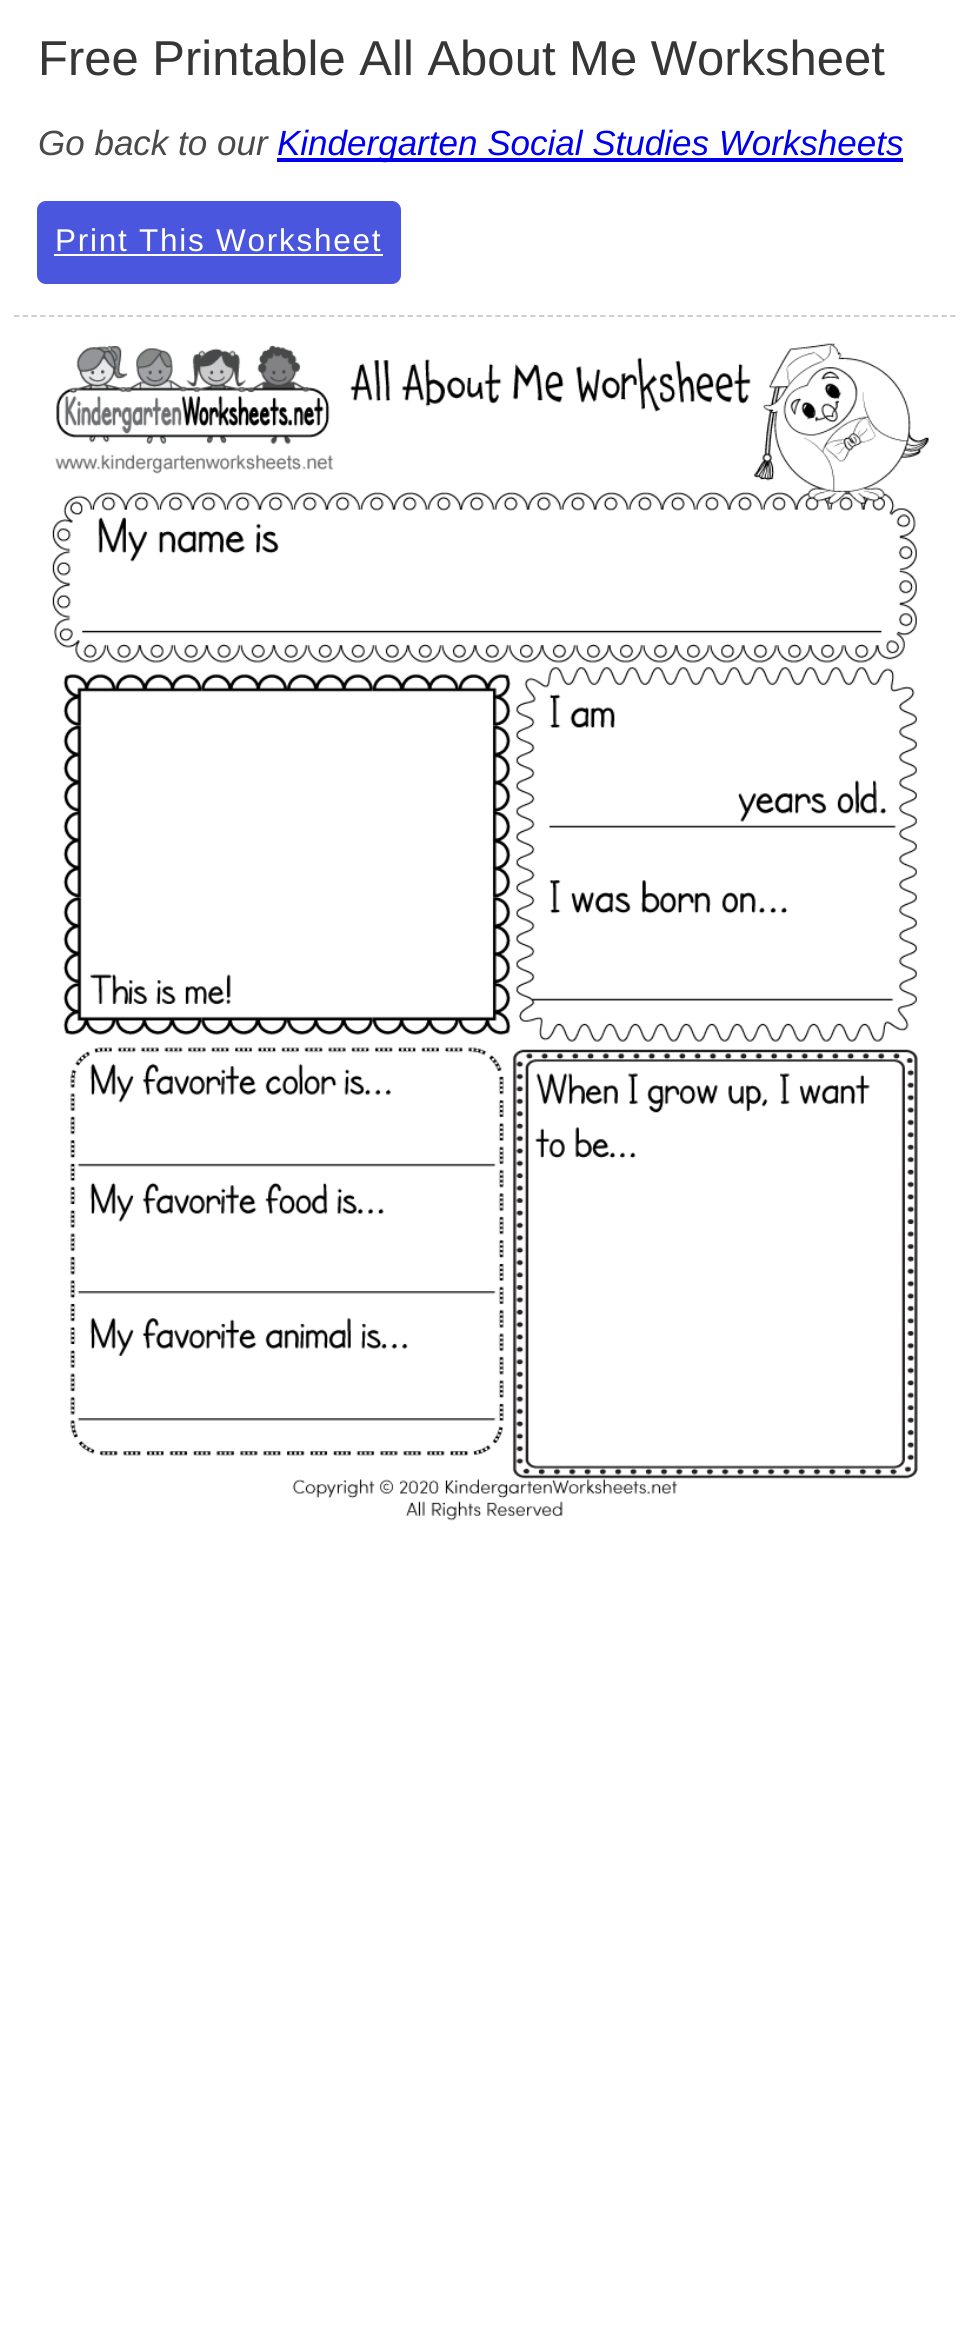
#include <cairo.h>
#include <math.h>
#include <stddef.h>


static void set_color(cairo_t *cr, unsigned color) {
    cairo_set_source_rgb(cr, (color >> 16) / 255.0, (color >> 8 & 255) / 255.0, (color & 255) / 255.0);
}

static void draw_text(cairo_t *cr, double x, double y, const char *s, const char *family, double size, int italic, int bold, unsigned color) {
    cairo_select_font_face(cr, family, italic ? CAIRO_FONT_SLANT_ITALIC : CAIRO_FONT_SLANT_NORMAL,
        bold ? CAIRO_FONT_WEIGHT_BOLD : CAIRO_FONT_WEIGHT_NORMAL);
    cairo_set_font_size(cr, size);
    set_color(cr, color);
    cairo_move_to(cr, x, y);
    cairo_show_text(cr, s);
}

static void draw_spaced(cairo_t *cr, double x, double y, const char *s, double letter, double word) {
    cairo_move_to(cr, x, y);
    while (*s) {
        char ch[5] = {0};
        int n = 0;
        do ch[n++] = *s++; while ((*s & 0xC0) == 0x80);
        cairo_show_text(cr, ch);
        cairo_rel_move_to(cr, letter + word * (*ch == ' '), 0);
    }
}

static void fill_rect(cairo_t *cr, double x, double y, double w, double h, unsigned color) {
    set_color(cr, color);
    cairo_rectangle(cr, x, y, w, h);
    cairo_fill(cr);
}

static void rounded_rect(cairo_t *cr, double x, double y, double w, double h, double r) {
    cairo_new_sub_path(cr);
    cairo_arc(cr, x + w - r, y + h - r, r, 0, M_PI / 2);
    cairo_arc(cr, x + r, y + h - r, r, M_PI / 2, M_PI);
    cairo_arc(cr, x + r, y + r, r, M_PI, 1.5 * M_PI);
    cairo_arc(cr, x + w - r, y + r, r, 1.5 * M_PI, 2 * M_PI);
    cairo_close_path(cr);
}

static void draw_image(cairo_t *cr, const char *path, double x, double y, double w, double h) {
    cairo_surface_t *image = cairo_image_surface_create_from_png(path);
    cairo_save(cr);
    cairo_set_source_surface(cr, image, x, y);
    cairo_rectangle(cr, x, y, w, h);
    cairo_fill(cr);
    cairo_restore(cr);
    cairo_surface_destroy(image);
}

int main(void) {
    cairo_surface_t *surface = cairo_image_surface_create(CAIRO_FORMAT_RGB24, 969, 2348);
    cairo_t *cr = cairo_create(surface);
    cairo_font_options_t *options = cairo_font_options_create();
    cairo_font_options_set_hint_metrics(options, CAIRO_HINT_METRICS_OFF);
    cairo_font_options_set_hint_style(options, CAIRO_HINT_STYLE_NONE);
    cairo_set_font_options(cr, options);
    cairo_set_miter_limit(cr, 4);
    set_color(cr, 0xFFFFFF);
    cairo_paint(cr);
    draw_text(cr, 38, 75, "Free Printable All About Me Worksheet", "Liberation Sans", 49, 0, 0, 0x363636);
    draw_text(cr, 38, 155, "Go back to our", "Liberation Sans", 35, 1, 0, 0x4A4A4A);
    fill_rect(cr, 277, 158, 626, 4, 0x0000EE);
    draw_text(cr, 277, 155, "Kindergarten Social Studies Worksheets", "Liberation Sans", 35, 1, 0, 0x0000EE);
    set_color(cr, 0x4B56DE);
    rounded_rect(cr, 37, 201, 364, 83, 9);
    cairo_fill(cr);
    cairo_select_font_face(cr, "Liberation Sans", CAIRO_FONT_SLANT_NORMAL, CAIRO_FONT_WEIGHT_NORMAL);
    cairo_set_font_size(cr, 31.5);
    set_color(cr, 0xFFFFFF);
    draw_spaced(cr, 55, 251, "Print This Worksheet", 1.75, 0);
    fill_rect(cr, 54, 254, 329, 2, 0xFFFFFF);
    cairo_new_path(cr);
    cairo_move_to(cr, 14, 316);
    cairo_line_to(cr, 955.5, 316);
    set_color(cr, 0xCACACA);
    cairo_set_line_width(cr, 1.8);
    cairo_set_dash(cr, (double[]){5.25, 3.5}, 2, 0);
    cairo_stroke(cr);
    draw_image(cr, "assets/img1.png", 52, 343, 877, 1178);
    cairo_surface_write_to_png(surface, "output.png");
    cairo_font_options_destroy(options);
    cairo_destroy(cr);
    cairo_surface_destroy(surface);
    return 0;
}
